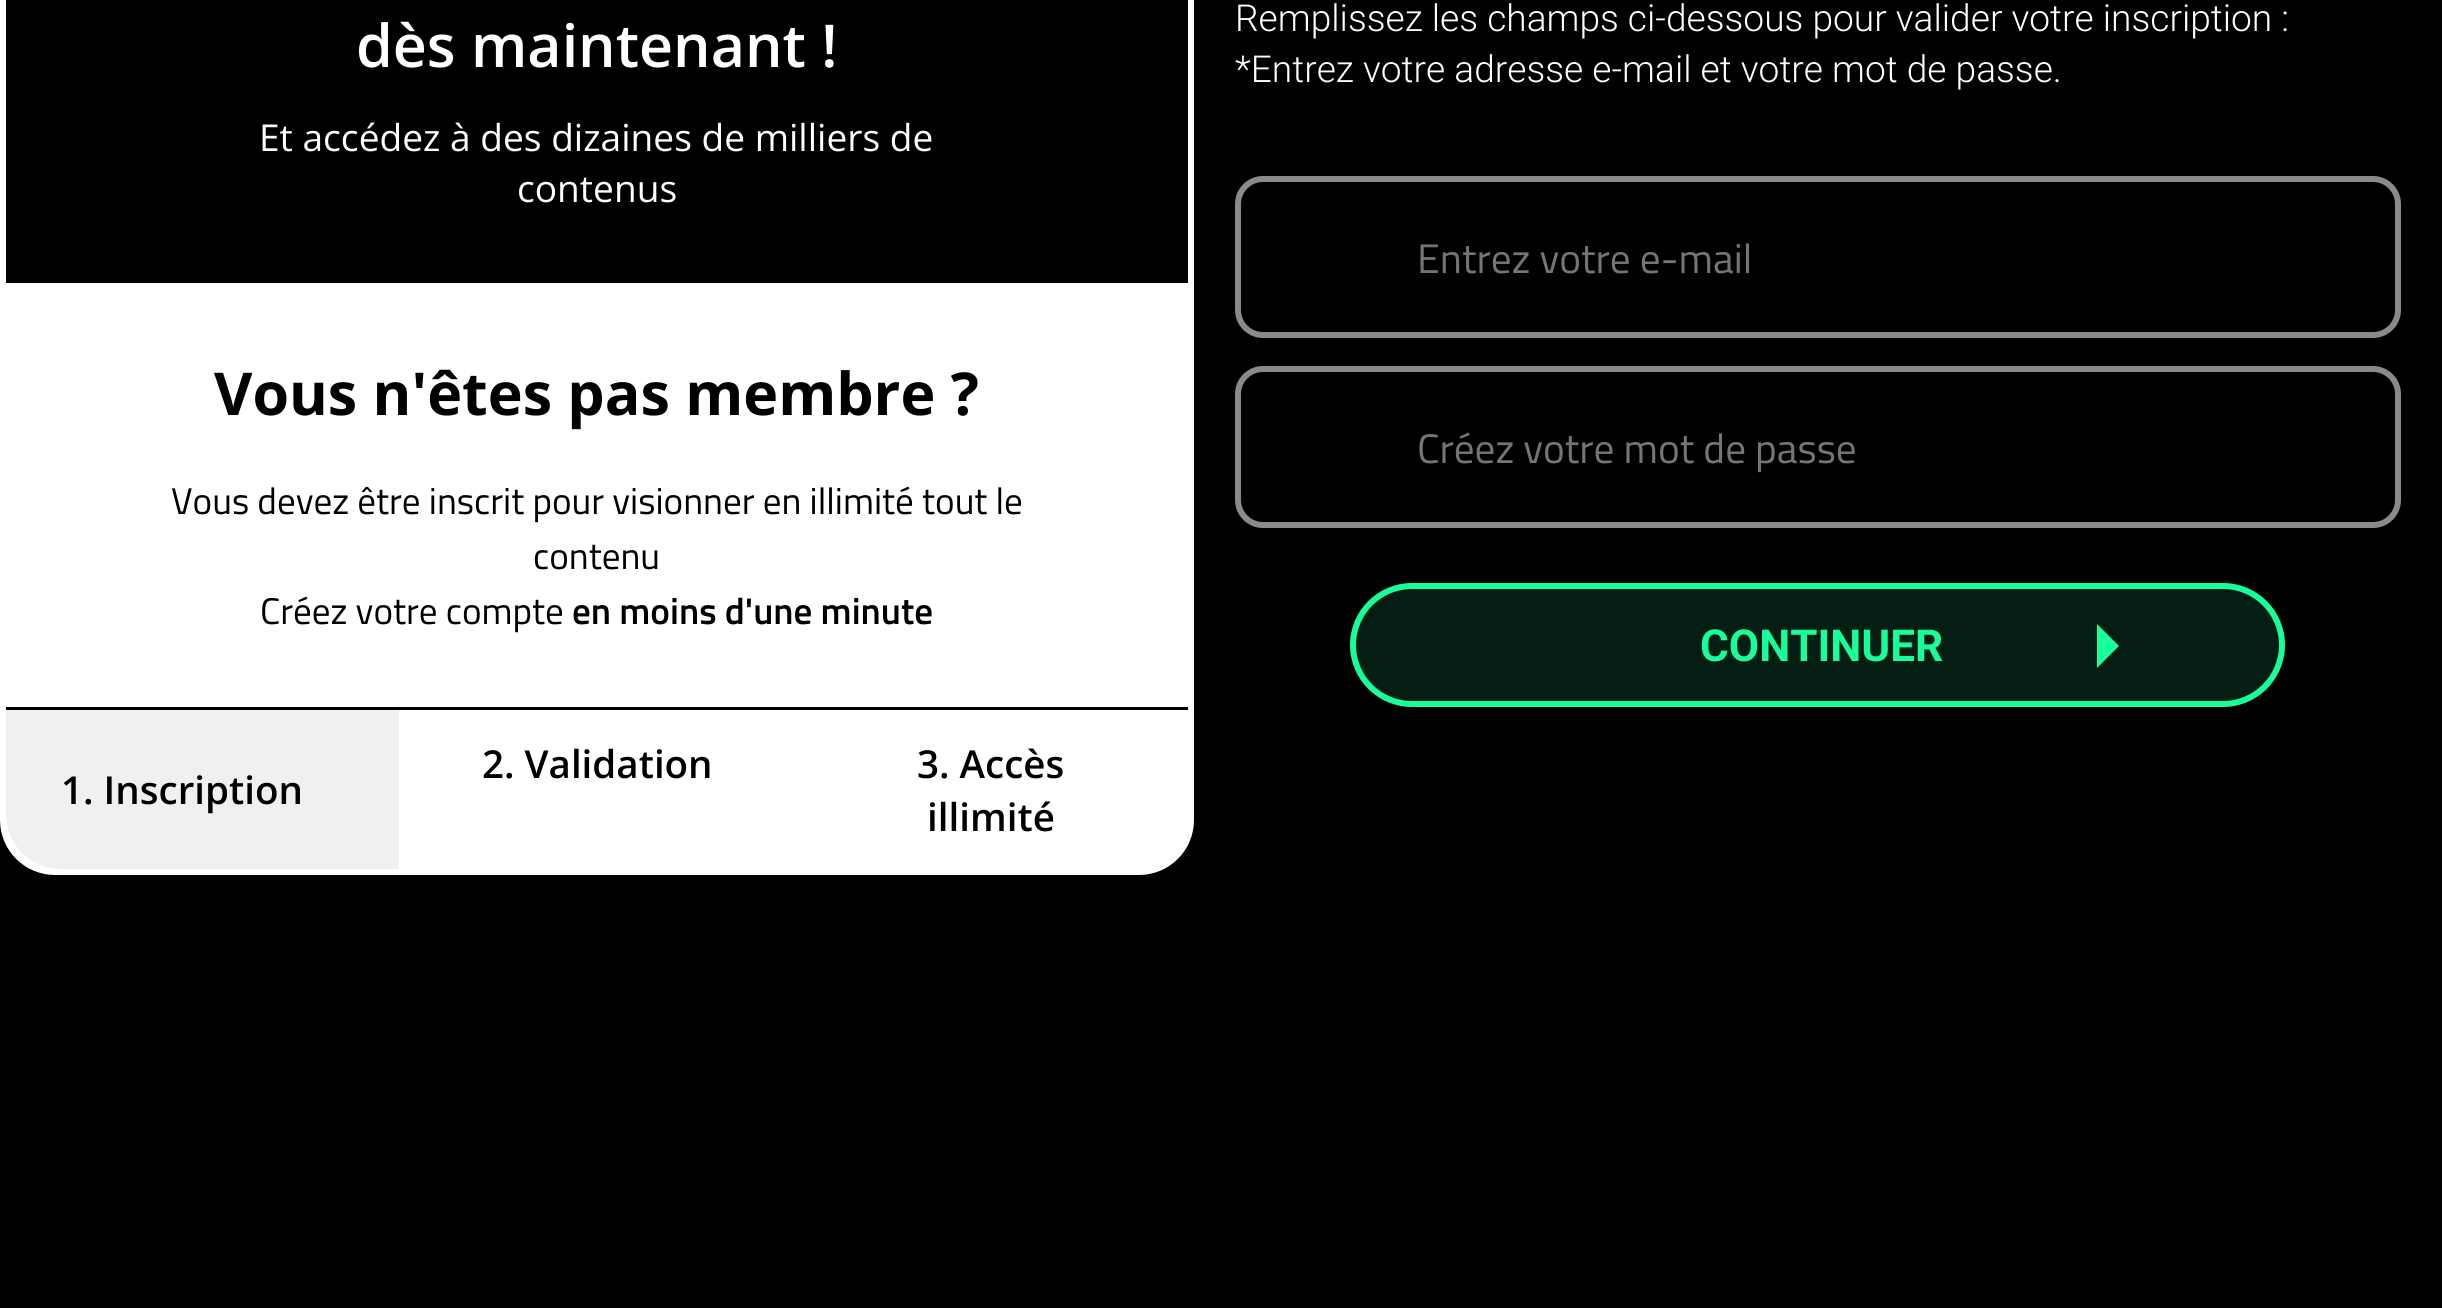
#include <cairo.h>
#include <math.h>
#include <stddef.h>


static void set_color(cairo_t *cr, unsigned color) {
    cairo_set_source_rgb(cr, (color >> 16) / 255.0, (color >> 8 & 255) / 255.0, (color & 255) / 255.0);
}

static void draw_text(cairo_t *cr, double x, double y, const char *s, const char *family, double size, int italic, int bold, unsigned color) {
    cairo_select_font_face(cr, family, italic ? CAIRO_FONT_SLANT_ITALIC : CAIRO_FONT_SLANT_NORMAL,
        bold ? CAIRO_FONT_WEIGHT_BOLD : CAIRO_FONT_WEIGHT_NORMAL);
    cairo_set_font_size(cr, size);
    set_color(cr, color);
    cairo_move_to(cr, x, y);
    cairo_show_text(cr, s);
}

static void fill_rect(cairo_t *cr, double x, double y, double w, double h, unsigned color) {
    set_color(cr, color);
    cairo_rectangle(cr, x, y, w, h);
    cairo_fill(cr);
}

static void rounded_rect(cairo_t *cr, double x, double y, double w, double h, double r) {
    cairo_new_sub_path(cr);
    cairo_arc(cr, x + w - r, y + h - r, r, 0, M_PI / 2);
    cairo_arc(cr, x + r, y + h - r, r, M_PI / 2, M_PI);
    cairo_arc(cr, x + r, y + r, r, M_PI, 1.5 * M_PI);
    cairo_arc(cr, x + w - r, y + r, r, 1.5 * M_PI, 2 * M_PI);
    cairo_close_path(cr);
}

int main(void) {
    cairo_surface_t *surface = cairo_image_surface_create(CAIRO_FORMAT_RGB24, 2442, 1308);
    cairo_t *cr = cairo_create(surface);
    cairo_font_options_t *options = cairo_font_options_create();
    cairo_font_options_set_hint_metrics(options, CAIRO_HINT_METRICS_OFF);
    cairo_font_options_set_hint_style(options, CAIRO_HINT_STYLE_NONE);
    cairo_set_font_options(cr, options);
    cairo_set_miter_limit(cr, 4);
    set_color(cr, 0x010102);
    cairo_paint(cr);
    set_color(cr, 0xFFFFFF);
    rounded_rect(cr, 3, -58, 1188, 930, 52);
    cairo_fill_preserve(cr);
    cairo_set_line_width(cr, 6);
    cairo_stroke(cr);
    fill_rect(cr, 6, 0, 1182, 283, 0x000000);
    draw_text(cr, 356, 67, "dès maintenant !", "Open Sans SemiBold", 59.1, 0, 0, 0xFFFFFF);
    draw_text(cr, 259, 151, "Et accédez à des dizaines de milliers de", "Open Sans", 37.1, 0, 0, 0xFFFFFF);
    draw_text(cr, 517, 202, "contenus", "Open Sans", 37.1, 0, 0, 0xFFFFFF);
    draw_text(cr, 214, 415, "Vous n'êtes pas membre ?", "Open Sans", 59.1, 0, 1, 0x000000);
    draw_text(cr, 171, 514, "Vous devez être inscrit pour visionner en illimité tout le", "Titillium Web", 37.1, 0, 0, 0x000000);
    draw_text(cr, 533, 569, "contenu", "Titillium Web", 37.1, 0, 0, 0x000000);
    draw_text(cr, 260, 624, "Créez votre compte", "Titillium Web", 37.1, 0, 0, 0x000000);
    draw_text(cr, 572, 624, "en moins d'une minute", "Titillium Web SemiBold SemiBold", 37.1, 0, 0, 0x000000);
    fill_rect(cr, 6, 707, 1182, 3, 0x000000);
    set_color(cr, 0xF0F0F0);
    cairo_new_path(cr);
    cairo_move_to(cr, 6, 710);
    cairo_line_to(cr, 399, 710);
    cairo_line_to(cr, 399, 869);
    cairo_line_to(cr, 61, 869);
    cairo_curve_to(cr, 30.5, 869, 6, 844.5, 6, 814);
    cairo_close_path(cr);
    cairo_fill(cr);
    draw_text(cr, 61, 804, "1. Inscription", "Open Sans SemiBold", 38.5, 0, 0, 0x000000);
    draw_text(cr, 482, 778, "2. Validation", "Open Sans SemiBold", 38.5, 0, 0, 0x000000);
    draw_text(cr, 917, 778, "3. Accès", "Open Sans SemiBold", 38.5, 0, 0, 0x000000);
    draw_text(cr, 927, 831, "illimité", "Open Sans SemiBold", 38.5, 0, 0, 0x000000);
    draw_text(cr, 1235, 31, "Remplissez les champs ci-dessous pour valider votre inscription :", "Roboto Light", 37.1, 0, 0, 0xFFFFFF);
    draw_text(cr, 1235, 82, "*Entrez votre adresse e-mail et votre mot de passe.", "Roboto Light", 37.1, 0, 0, 0xFFFFFF);
    rounded_rect(cr, 1238, 179, 1160, 156, 25);
    set_color(cr, 0x8A8A8A);
    cairo_stroke(cr);
    draw_text(cr, 1417, 273, "Entrez votre e-mail", "Titillium Web", 41.25, 0, 0, 0x757575);
    rounded_rect(cr, 1238, 369, 1160, 156, 25);
    set_color(cr, 0x8A8A8A);
    cairo_stroke(cr);
    draw_text(cr, 1417, 463, "Créez votre mot de passe", "Titillium Web", 41.25, 0, 0, 0x757575);
    set_color(cr, 0x041E13);
    rounded_rect(cr, 1353, 586, 929, 118, 59);
    cairo_fill_preserve(cr);
    set_color(cr, 0x17FF9A);
    cairo_stroke(cr);
    draw_text(cr, 1700, 661, "CONTINUER", "Roboto", 44, 0, 1, 0x17FF9A);
    cairo_new_path(cr);
    cairo_move_to(cr, 2097, 668);
    cairo_line_to(cr, 2097, 624);
    cairo_line_to(cr, 2119, 646);
    cairo_close_path(cr);
    cairo_fill(cr);
    cairo_surface_write_to_png(surface, "output.png");
    cairo_font_options_destroy(options);
    cairo_destroy(cr);
    cairo_surface_destroy(surface);
    return 0;
}
